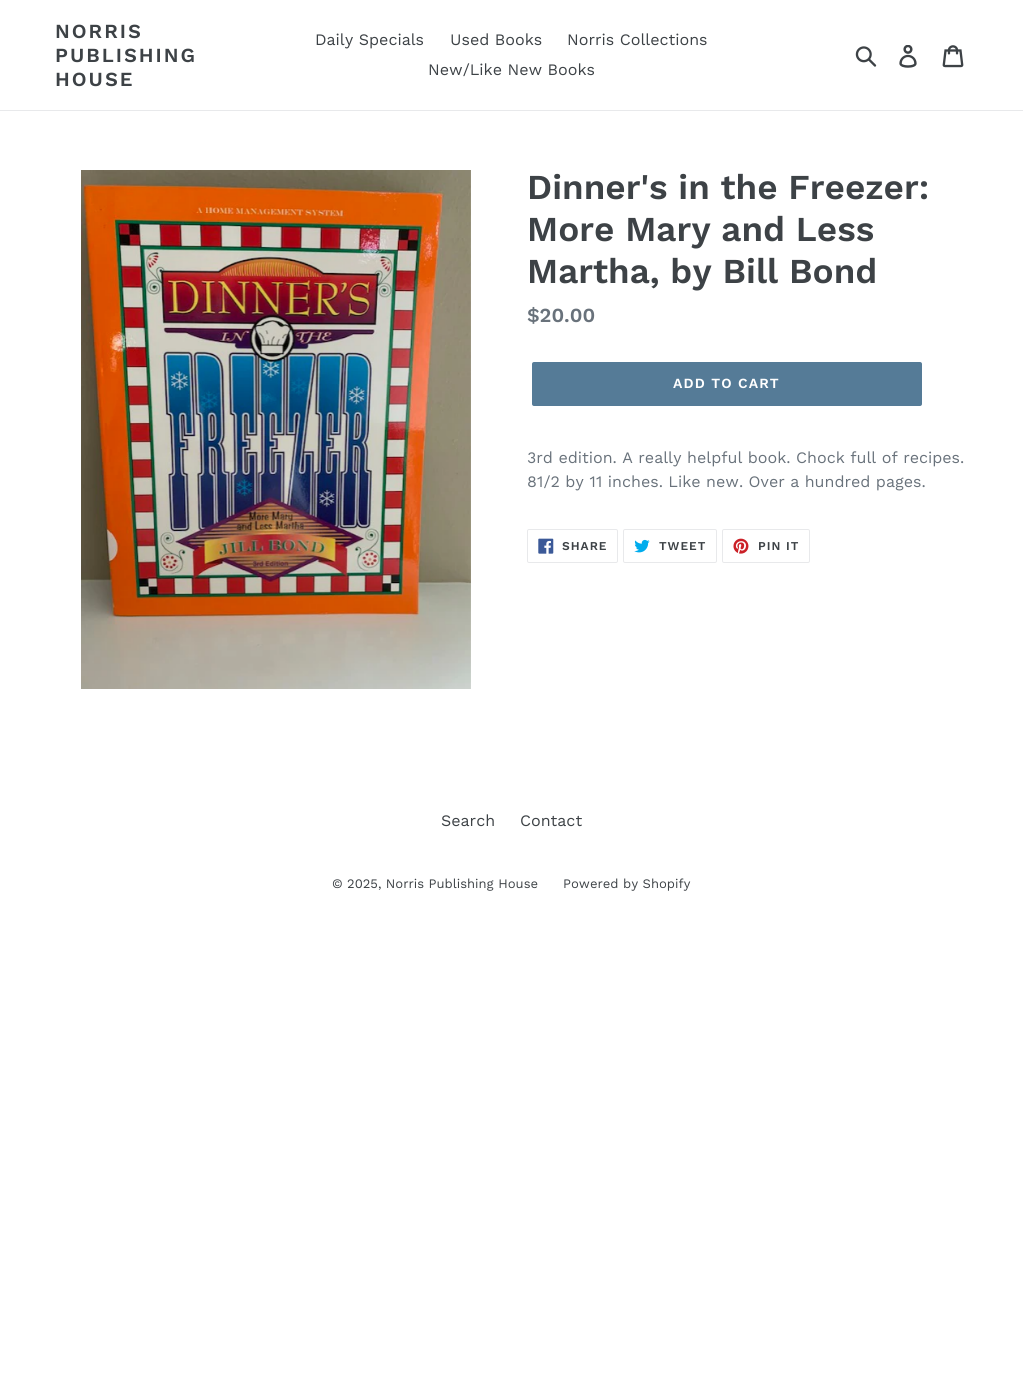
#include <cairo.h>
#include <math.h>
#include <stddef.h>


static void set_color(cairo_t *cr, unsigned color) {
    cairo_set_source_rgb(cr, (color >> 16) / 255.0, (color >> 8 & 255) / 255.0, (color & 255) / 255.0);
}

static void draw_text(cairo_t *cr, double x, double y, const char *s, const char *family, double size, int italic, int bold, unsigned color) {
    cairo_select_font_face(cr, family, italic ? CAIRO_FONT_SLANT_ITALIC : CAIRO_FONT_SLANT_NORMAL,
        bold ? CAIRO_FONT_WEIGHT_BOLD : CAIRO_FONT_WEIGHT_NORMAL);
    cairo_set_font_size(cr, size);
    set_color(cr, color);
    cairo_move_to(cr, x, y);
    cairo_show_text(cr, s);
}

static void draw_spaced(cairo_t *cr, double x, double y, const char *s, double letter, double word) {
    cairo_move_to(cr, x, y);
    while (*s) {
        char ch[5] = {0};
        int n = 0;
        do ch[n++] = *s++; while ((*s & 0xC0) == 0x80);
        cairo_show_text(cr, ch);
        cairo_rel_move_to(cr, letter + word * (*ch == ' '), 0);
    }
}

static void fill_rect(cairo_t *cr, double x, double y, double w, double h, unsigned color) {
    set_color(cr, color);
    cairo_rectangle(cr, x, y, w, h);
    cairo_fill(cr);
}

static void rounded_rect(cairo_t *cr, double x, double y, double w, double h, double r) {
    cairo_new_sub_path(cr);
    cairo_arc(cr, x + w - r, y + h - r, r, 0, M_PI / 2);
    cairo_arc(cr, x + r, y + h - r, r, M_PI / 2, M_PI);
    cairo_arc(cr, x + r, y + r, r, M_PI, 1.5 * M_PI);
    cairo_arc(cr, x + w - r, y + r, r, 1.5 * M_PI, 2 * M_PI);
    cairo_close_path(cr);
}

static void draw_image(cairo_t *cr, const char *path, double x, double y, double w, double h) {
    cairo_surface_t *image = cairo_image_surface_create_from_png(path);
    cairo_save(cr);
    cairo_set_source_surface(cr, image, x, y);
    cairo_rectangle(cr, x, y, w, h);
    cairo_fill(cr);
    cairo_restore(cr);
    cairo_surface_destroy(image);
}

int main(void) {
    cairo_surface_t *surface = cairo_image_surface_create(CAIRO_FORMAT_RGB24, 1023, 1376);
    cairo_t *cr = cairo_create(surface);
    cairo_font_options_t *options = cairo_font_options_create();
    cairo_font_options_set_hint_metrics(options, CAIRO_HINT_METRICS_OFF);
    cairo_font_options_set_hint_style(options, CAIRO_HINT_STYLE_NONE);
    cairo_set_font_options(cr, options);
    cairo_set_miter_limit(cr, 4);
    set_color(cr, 0xFFFFFF);
    cairo_paint(cr);
    fill_rect(cr, 0, 110, 1023, 1, 0xE8E9EB);
    cairo_select_font_face(cr, "Work Sans SemiBold", CAIRO_FONT_SLANT_NORMAL, CAIRO_FONT_WEIGHT_NORMAL);
    cairo_set_font_size(cr, 20);
    set_color(cr, 0x3D4246);
    draw_spaced(cr, 55, 38, "NORRIS", 2, 0);
    draw_spaced(cr, 55, 62, "PUBLISHING", 2, 0);
    draw_spaced(cr, 55, 86, "HOUSE", 2, 0);
    draw_text(cr, 315, 45, "Daily Specials", "Work Sans", 16, 0, 0, 0x3D4246);
    draw_text(cr, 450, 45, "Used Books", "Work Sans", 16, 0, 0, 0x3D4246);
    draw_text(cr, 567, 45, "Norris Collections", "Work Sans", 16, 0, 0, 0x3D4246);
    draw_text(cr, 428, 75, "New/Like New Books", "Work Sans", 16, 0, 0, 0x3D4246);
    draw_image(cr, "assets/img1.png", 855, 46, 22, 21);
    draw_image(cr, "assets/img2.png", 899, 45, 18, 23);
    draw_image(cr, "assets/img3.png", 942, 45, 22, 23);
    draw_image(cr, "assets/img4.png", 81, 170, 390, 519);
    draw_text(cr, 527, 199, "Dinner's in the Freezer:", "Work Sans SemiBold", 35, 0, 0, 0x3D4246);
    draw_text(cr, 527, 241, "More Mary and Less", "Work Sans SemiBold", 35, 0, 0, 0x3D4246);
    draw_text(cr, 527, 283, "Martha, by Bill Bond", "Work Sans SemiBold", 35, 0, 0, 0x3D4246);
    draw_text(cr, 527, 322, "$20.00", "Work Sans SemiBold", 20, 0, 0, 0x69727B);
    set_color(cr, 0x557B97);
    rounded_rect(cr, 532, 362, 390, 44, 2);
    cairo_fill(cr);
    cairo_set_font_size(cr, 14);
    set_color(cr, 0xFFFFFF);
    draw_spaced(cr, 673, 388, "ADD TO CART", 1.1, 0);
    draw_text(cr, 527, 463, "3rd edition. A really helpful book. Chock full of recipes.", "Work Sans", 16, 0, 0, 0x69727B);
    draw_text(cr, 527, 487, "81/2 by 11 inches. Like new. Over a hundred pages.", "Work Sans", 16, 0, 0, 0x69727B);
    rounded_rect(cr, 527.5, 529.5, 90, 33, 1.5);
    set_color(cr, 0xE8E9EB);
    cairo_set_line_width(cr, 1);
    cairo_stroke(cr);
    draw_image(cr, "assets/img5.png", 538, 538, 16, 16);
    cairo_select_font_face(cr, "Work Sans SemiBold", CAIRO_FONT_SLANT_NORMAL, CAIRO_FONT_WEIGHT_NORMAL);
    cairo_set_font_size(cr, 12);
    set_color(cr, 0x3D4246);
    draw_spaced(cr, 562, 550, "SHARE", 1, 0);
    rounded_rect(cr, 623.5, 529.5, 93, 33, 1.5);
    set_color(cr, 0xE8E9EB);
    cairo_stroke(cr);
    draw_image(cr, "assets/img6.png", 634, 539, 16, 14);
    set_color(cr, 0x3D4246);
    draw_spaced(cr, 659, 550, "TWEET", 1, 0);
    rounded_rect(cr, 722.5, 529.5, 87, 33, 1.5);
    set_color(cr, 0xE8E9EB);
    cairo_stroke(cr);
    draw_image(cr, "assets/img7.png", 733, 538, 16, 16);
    set_color(cr, 0x3D4246);
    draw_spaced(cr, 758, 550, "PIN IT", 1, 0);
    draw_text(cr, 441, 826, "Search", "Work Sans", 16, 0, 0, 0x3D4246);
    draw_text(cr, 520, 826, "Contact", "Work Sans", 16, 0, 0, 0x3D4246);
    draw_text(cr, 332, 888, "© 2025, Norris Publishing House", "Work Sans", 13, 0, 0, 0x3D4246);
    draw_text(cr, 563, 888, "Powered by Shopify", "Work Sans", 13, 0, 0, 0x3D4246);
    cairo_surface_write_to_png(surface, "output.png");
    cairo_font_options_destroy(options);
    cairo_destroy(cr);
    cairo_surface_destroy(surface);
    return 0;
}
